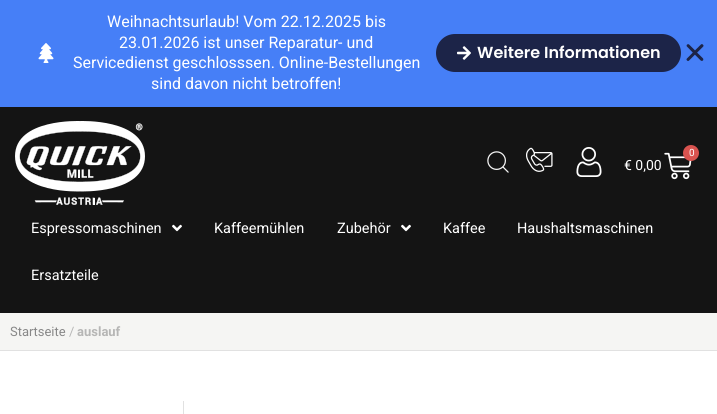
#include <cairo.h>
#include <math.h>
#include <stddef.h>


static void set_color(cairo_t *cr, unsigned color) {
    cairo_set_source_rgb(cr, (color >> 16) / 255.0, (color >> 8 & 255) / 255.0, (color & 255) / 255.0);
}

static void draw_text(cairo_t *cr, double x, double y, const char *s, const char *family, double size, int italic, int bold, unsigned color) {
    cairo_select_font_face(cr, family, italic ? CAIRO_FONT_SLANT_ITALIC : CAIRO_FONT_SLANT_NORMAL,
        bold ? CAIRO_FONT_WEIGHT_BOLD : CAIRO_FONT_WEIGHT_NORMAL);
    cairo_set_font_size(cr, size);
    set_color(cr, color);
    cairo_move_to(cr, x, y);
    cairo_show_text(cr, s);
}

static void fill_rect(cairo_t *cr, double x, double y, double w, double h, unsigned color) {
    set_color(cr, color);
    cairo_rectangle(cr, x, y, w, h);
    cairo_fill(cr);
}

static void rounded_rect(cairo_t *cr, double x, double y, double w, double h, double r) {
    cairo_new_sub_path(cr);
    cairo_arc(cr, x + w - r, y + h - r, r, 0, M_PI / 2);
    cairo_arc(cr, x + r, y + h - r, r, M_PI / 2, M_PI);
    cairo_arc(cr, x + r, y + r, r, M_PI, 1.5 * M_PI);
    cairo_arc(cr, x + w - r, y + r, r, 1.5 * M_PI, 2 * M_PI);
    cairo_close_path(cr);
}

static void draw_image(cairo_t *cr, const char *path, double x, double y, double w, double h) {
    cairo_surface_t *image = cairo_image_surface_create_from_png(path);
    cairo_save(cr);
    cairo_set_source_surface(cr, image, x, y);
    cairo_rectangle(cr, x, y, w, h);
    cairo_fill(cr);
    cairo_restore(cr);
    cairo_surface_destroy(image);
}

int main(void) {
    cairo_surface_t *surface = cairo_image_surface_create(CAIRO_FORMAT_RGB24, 717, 414);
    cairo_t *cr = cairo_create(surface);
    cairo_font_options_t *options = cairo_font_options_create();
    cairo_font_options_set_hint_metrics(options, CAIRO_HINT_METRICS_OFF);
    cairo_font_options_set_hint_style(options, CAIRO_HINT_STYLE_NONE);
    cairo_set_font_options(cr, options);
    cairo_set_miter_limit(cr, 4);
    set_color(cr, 0xFFFFFF);
    cairo_paint(cr);
    fill_rect(cr, 0, 0, 717, 107, 0x467FF7);
    draw_image(cr, "assets/img1.png", 38, 43, 16, 20);
    draw_text(cr, 107, 27, "Weihnachtsurlaub! Vom 22.12.2025 bis", "Roboto", 16, 0, 0, 0xFFFFFF);
    draw_text(cr, 119, 48, "23.01.2026 ist unser Reparatur- und", "Roboto", 16, 0, 0, 0xFFFFFF);
    draw_text(cr, 73, 68, "Servicedienst geschlosssen. Online-Bestellungen", "Roboto", 16, 0, 0, 0xFFFFFF);
    draw_text(cr, 151, 89, "sind davon nicht betroffen!", "Roboto", 16, 0, 0, 0xFFFFFF);
    set_color(cr, 0x1C2448);
    rounded_rect(cr, 436, 34, 245, 38, 19);
    cairo_fill(cr);
    draw_image(cr, "assets/img2.png", 457, 46, 14, 14);
    draw_text(cr, 477, 58, "Weitere Informationen", "Poppins SemiBold", 16, 0, 0, 0xFFFFFF);
    draw_image(cr, "assets/img3.png", 686, 44, 18, 17);
    fill_rect(cr, 0, 107, 717, 206, 0x141414);
    draw_image(cr, "assets/img4.png", 15, 121, 130, 84);
    draw_image(cr, "assets/img5.png", 487, 151, 22, 22);
    draw_image(cr, "assets/img6.png", 526, 147, 27, 25);
    draw_image(cr, "assets/img7.png", 576, 147, 26, 30);
    draw_image(cr, "assets/img8.png", 664, 152, 28, 28);
    set_color(cr, 0xD9534F);
    cairo_arc(cr, 691, 153, 8, 0, 2 * M_PI);
    cairo_fill(cr);
    draw_text(cr, 689, 156, "0", "Roboto", 10, 0, 0, 0xFFFFFF);
    draw_text(cr, 624, 170, "€ 0,00", "Roboto", 14, 0, 0, 0xFFFFFF);
    draw_text(cr, 31, 233, "Espressomaschinen", "Roboto", 14.5, 0, 0, 0xFFFFFF);
    draw_image(cr, "assets/img9.png", 172, 224, 10, 8);
    draw_text(cr, 214, 233, "Kaffeemühlen", "Roboto", 14.5, 0, 0, 0xFFFFFF);
    draw_text(cr, 337, 233, "Zubehör", "Roboto", 14.5, 0, 0, 0xFFFFFF);
    draw_image(cr, "assets/img9.png", 401, 224, 10, 8);
    draw_text(cr, 443, 233, "Kaffee", "Roboto", 14.5, 0, 0, 0xFFFFFF);
    draw_text(cr, 517, 233, "Haushaltsmaschinen", "Roboto", 14.5, 0, 0, 0xFFFFFF);
    draw_text(cr, 31, 280, "Ersatzteile", "Roboto", 14.5, 0, 0, 0xFFFFFF);
    fill_rect(cr, 0, 313, 717, 37, 0xF5F5F3);
    fill_rect(cr, 0, 350, 717, 1, 0xE1E1E1);
    draw_text(cr, 10, 336, "Startseite", "Roboto", 13, 0, 0, 0x888888);
    draw_text(cr, 69, 336, "/", "Roboto", 13, 0, 0, 0xB6B6B5);
    draw_text(cr, 77, 336, "auslauf", "Roboto", 13, 0, 1, 0xB6B6B5);
    fill_rect(cr, 183, 401, 1, 13, 0xE1E1E1);
    cairo_surface_write_to_png(surface, "output.png");
    cairo_font_options_destroy(options);
    cairo_destroy(cr);
    cairo_surface_destroy(surface);
    return 0;
}
